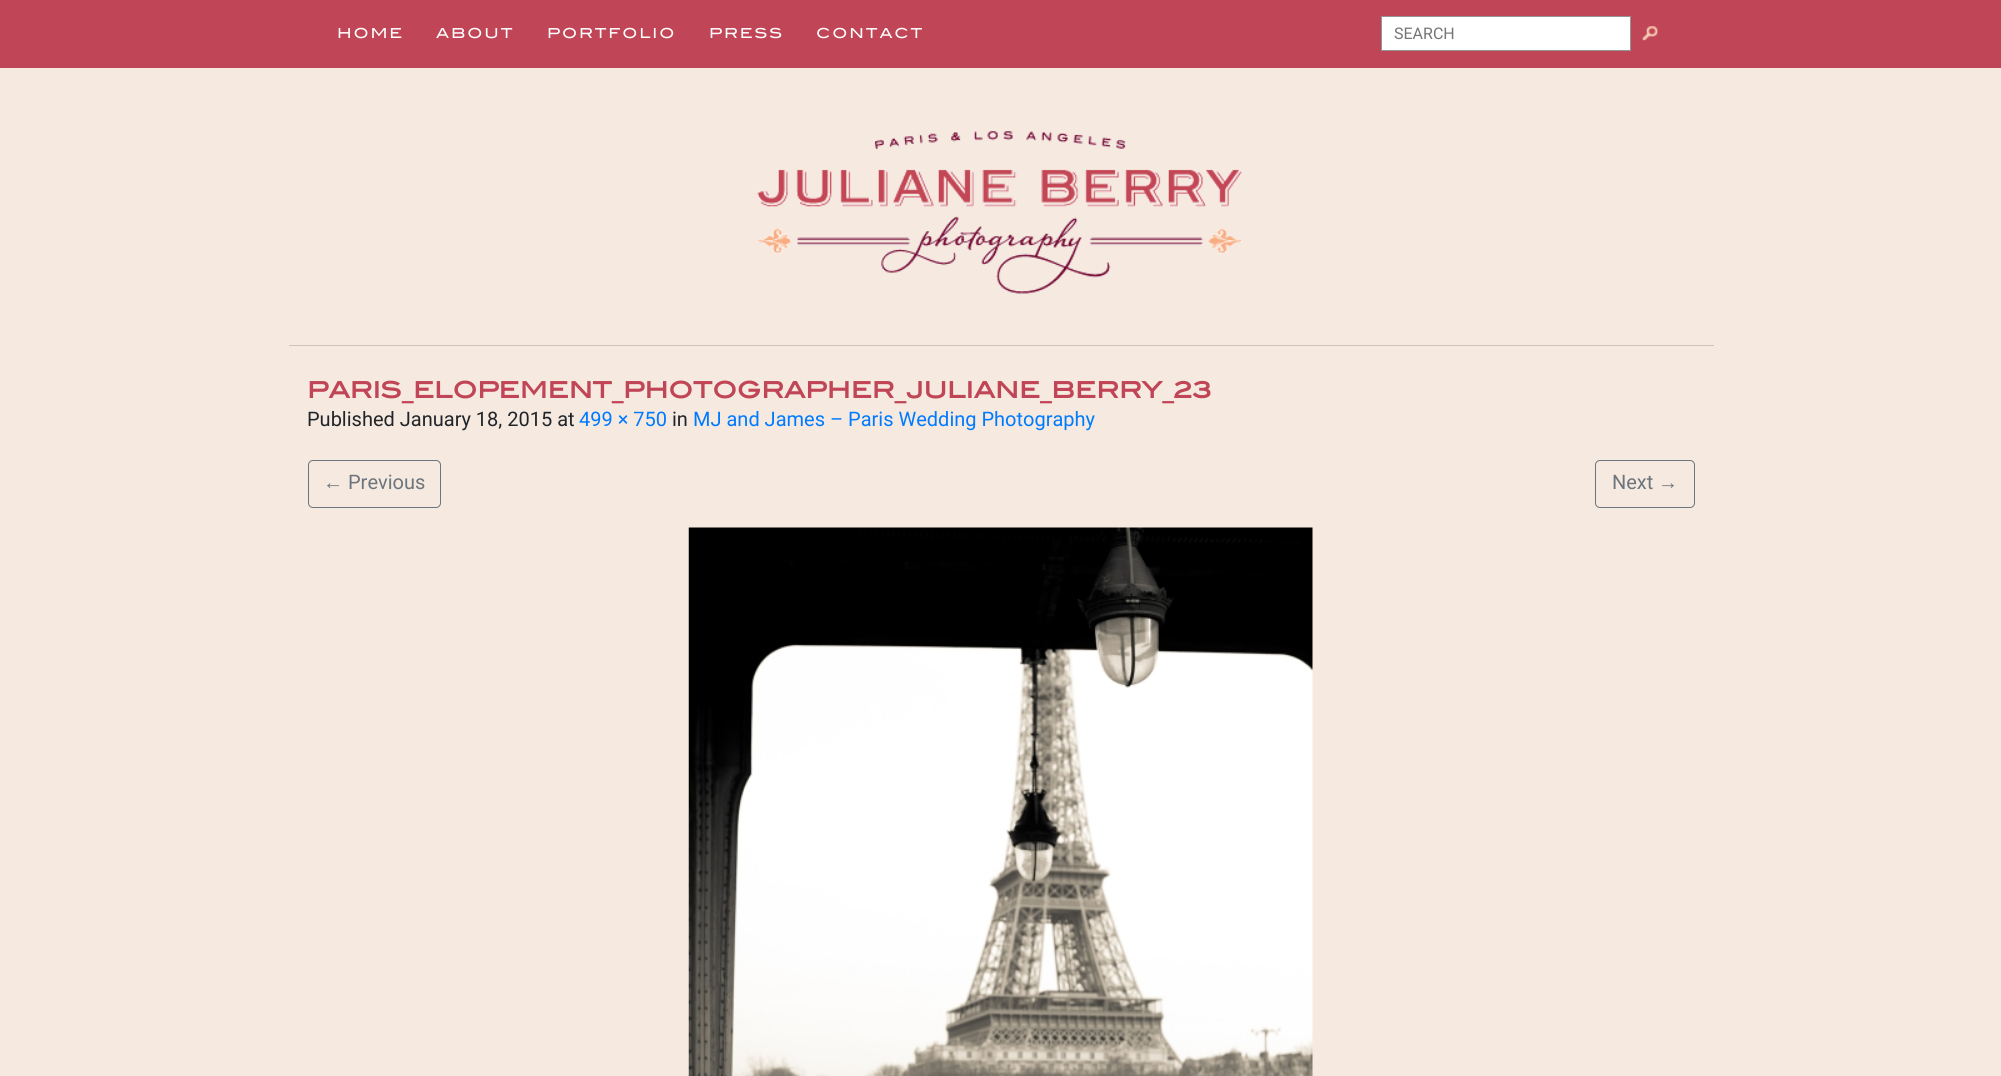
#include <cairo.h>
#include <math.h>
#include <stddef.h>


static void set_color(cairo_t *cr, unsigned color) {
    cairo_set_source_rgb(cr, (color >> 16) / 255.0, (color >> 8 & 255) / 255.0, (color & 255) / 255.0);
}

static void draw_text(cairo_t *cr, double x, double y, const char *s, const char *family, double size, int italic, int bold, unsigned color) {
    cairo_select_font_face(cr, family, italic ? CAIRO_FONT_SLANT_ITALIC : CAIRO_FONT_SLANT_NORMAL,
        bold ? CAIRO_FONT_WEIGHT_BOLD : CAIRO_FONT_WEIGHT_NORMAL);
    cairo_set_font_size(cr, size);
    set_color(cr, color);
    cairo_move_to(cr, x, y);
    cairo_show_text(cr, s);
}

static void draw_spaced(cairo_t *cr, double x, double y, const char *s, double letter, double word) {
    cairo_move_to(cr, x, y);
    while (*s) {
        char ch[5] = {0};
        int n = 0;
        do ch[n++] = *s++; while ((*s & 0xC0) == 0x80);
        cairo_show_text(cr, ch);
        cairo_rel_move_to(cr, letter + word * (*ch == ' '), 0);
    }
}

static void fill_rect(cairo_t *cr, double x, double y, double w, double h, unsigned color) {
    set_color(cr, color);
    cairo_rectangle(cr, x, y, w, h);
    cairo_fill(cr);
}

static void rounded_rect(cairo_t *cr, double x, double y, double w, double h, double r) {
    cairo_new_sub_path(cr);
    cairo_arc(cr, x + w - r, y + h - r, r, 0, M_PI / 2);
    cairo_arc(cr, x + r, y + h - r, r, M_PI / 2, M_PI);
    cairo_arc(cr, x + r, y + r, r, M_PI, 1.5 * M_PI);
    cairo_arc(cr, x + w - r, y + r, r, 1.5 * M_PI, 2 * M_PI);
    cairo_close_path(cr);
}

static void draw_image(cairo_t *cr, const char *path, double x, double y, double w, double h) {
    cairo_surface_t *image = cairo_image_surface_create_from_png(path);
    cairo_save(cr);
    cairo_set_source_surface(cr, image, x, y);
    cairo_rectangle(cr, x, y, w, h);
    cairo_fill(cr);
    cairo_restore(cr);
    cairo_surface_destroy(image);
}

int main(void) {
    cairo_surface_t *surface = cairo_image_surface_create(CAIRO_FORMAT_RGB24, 2001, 1076);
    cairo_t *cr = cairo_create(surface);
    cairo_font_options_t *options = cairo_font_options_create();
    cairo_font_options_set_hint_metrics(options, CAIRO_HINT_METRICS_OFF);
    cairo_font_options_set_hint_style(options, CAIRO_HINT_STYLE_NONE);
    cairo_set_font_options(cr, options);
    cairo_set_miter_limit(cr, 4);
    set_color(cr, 0xF6E9DF);
    cairo_paint(cr);
    fill_rect(cr, 0, 0, 2001, 68, 0xC04556);
    cairo_select_font_face(cr, "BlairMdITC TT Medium", CAIRO_FONT_SLANT_NORMAL, CAIRO_FONT_WEIGHT_NORMAL);
    cairo_set_font_size(cr, 13.75);
    set_color(cr, 0xFFFFFF);
    draw_spaced(cr, 337, 38, "HOME", 1.9, 0);
    draw_spaced(cr, 436, 38, "ABOUT", 1.9, 0);
    draw_spaced(cr, 547, 38, "PORTFOLIO", 1.9, 0);
    draw_spaced(cr, 709, 38, "PRESS", 1.9, 0);
    draw_spaced(cr, 816, 38, "CONTACT", 1.9, 0);
    cairo_rectangle(cr, 1381.5, 16.5, 249, 34);
    cairo_fill_preserve(cr);
    set_color(cr, 0x949494);
    cairo_set_line_width(cr, 1);
    cairo_stroke(cr);
    draw_text(cr, 1394, 39, "SEARCH", "Roboto", 16, 0, 0, 0x757575);
    draw_image(cr, "assets/img1.png", 1642, 26, 16, 15);
    draw_image(cr, "assets/img2.png", 757, 131, 486, 163);
    fill_rect(cr, 289, 345, 1425, 1, 0xCAC3BE);
    draw_text(cr, 307, 398, "PARIS_ELOPEMENT_PHOTOGRAPHER_JULIANE_BERRY_23", "BlairMdITC TT", 22.5, 0, 1, 0xC04556);
    draw_text(cr, 307, 426, "Published January 18, 2015 at", "Roboto", 20, 0, 0, 0x212529);
    draw_text(cr, 579, 426, "499 × 750", "Roboto", 20, 0, 0, 0x007BFF);
    draw_text(cr, 672, 426, "in", "Roboto", 20, 0, 0, 0x212529);
    draw_text(cr, 693, 426, "MJ and James – Paris Wedding Photography", "Roboto", 20, 0, 0, 0x007BFF);
    rounded_rect(cr, 308.5, 460.5, 132, 47, 4.5);
    set_color(cr, 0x6C757D);
    cairo_stroke(cr);
    draw_text(cr, 323, 489, "←", "Liberation Sans", 20, 0, 0, 0x6C757D);
    draw_text(cr, 348, 489, "Previous", "Roboto", 20, 0, 0, 0x6C757D);
    rounded_rect(cr, 1595.5, 460.5, 99, 47, 4.5);
    cairo_stroke(cr);
    draw_text(cr, 1612, 489, "Next", "Roboto", 20, 0, 0, 0x6C757D);
    draw_text(cr, 1658, 489, "→", "Liberation Sans", 20, 0, 0, 0x6C757D);
    draw_image(cr, "assets/img3.png", 688, 527, 625, 549);
    cairo_surface_write_to_png(surface, "output.png");
    cairo_font_options_destroy(options);
    cairo_destroy(cr);
    cairo_surface_destroy(surface);
    return 0;
}
